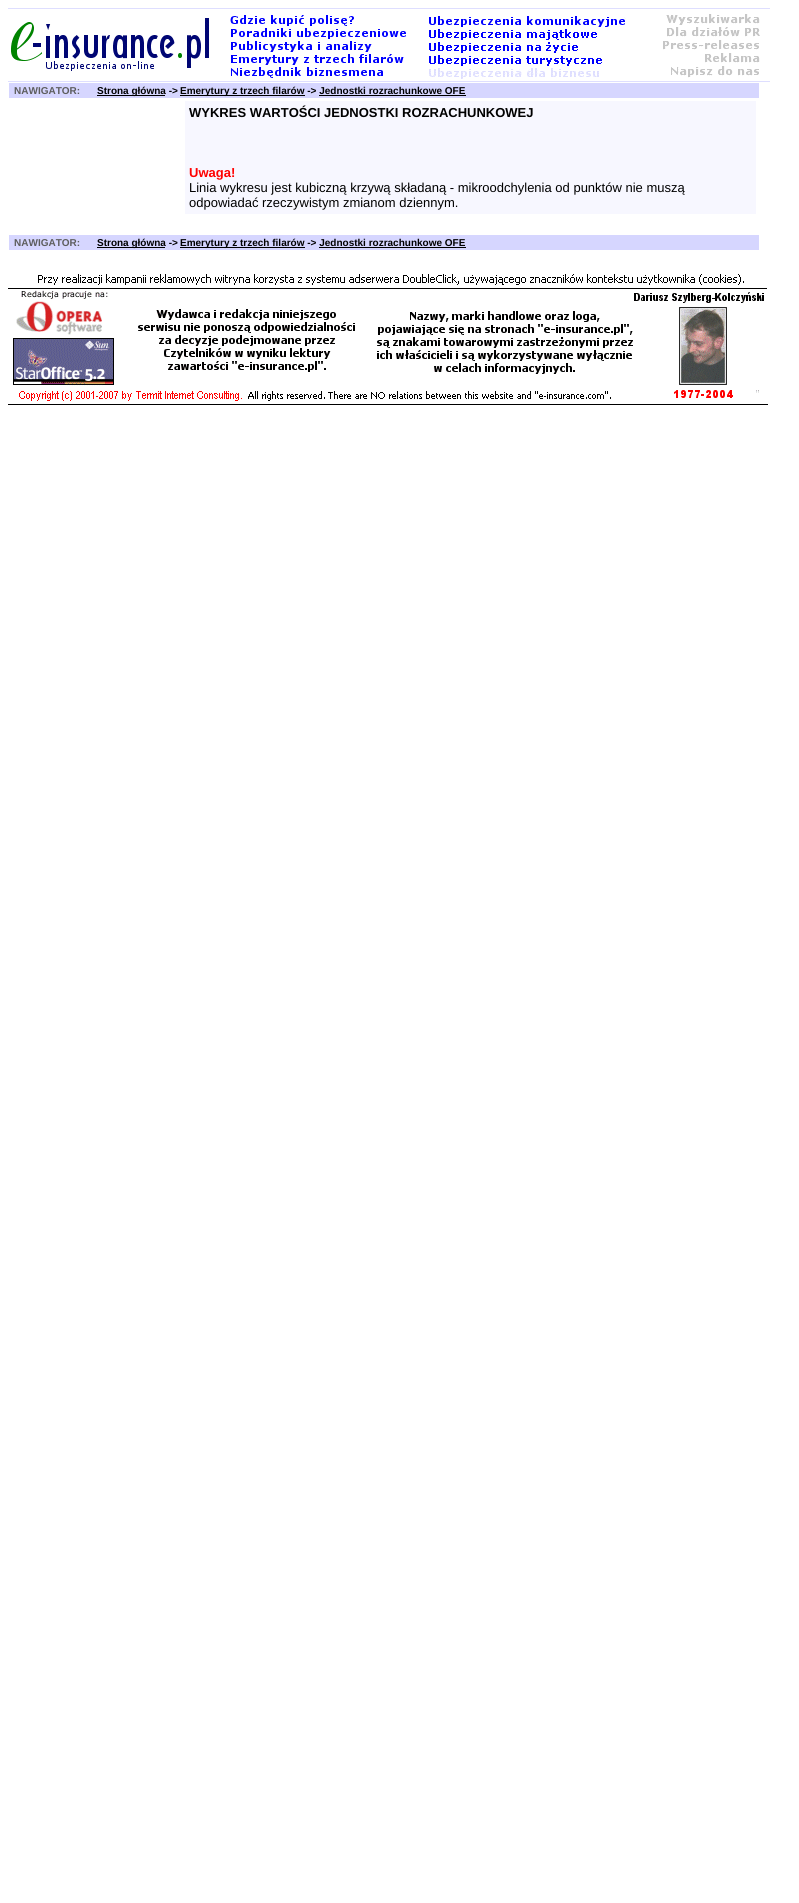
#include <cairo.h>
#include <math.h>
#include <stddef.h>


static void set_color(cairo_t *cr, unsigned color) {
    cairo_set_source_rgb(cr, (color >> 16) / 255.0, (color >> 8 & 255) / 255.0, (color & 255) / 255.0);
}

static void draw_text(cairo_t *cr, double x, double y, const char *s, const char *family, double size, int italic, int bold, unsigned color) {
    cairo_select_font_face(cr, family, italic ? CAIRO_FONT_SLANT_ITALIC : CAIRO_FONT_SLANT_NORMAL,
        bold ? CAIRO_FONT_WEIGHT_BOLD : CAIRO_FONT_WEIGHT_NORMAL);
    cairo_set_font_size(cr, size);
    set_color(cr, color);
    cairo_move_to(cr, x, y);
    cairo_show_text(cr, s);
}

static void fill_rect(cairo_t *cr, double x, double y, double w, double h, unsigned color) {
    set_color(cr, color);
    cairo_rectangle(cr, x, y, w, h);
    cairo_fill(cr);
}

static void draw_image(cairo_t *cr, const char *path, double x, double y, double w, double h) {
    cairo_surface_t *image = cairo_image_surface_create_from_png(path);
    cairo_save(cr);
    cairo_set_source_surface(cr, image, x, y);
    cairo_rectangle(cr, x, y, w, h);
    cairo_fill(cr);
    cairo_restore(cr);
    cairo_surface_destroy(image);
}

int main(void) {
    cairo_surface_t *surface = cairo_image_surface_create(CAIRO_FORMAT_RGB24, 799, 1903);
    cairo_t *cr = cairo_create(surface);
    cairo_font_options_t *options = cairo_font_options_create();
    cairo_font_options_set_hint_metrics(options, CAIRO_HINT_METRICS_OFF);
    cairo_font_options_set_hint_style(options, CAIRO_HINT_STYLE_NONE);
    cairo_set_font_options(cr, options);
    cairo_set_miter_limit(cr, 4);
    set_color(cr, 0xFFFFFF);
    cairo_paint(cr);
    draw_image(cr, "assets/img1.png", 8, 8, 762, 74);
    fill_rect(cr, 9, 83, 750, 15, 0xD6D6FF);
    draw_text(cr, 14, 94, "NAWIGATOR:", "Liberation Sans", 10, 0, 1, 0x5D5D5D);
    fill_rect(cr, 97, 95, 68, 1, 0x000000);
    draw_text(cr, 97, 94, "Strona główna ->", "Liberation Sans", 10, 0, 1, 0x000000);
    fill_rect(cr, 180, 95, 125, 1, 0x000000);
    draw_text(cr, 180, 94, "Emerytury z trzech filarów -> Jednostki rozrachunkowe OFE", "Liberation Sans", 10, 0, 1, 0x000000);
    fill_rect(cr, 319, 95, 147, 1, 0x000000);
    fill_rect(cr, 185, 101, 571, 113, 0xF7F7FF);
    draw_text(cr, 189, 117, "WYKRES WARTOŚCI JEDNOSTKI ROZRACHUNKOWEJ", "Liberation Sans", 13, 0, 1, 0x000000);
    draw_text(cr, 189, 177, "Uwaga!", "Liberation Sans", 13, 0, 1, 0xFF0000);
    draw_text(cr, 189, 192, "Linia wykresu jest kubiczną krzywą składaną - mikroodchylenia od punktów nie muszą", "Liberation Sans", 13, 0, 0, 0x000000);
    draw_text(cr, 189, 207, "odpowiadać rzeczywistym zmianom dziennym.", "Liberation Sans", 13, 0, 0, 0x000000);
    fill_rect(cr, 9, 235, 750, 15, 0xD6D6FF);
    draw_text(cr, 14, 246, "NAWIGATOR:", "Liberation Sans", 10, 0, 1, 0x5D5D5D);
    fill_rect(cr, 97, 247, 68, 1, 0x000000);
    draw_text(cr, 97, 246, "Strona główna ->", "Liberation Sans", 10, 0, 1, 0x000000);
    fill_rect(cr, 180, 247, 125, 1, 0x000000);
    draw_text(cr, 180, 246, "Emerytury z trzech filarów -> Jednostki rozrachunkowe OFE", "Liberation Sans", 10, 0, 1, 0x000000);
    fill_rect(cr, 319, 247, 147, 1, 0x000000);
    draw_image(cr, "assets/img2.png", 8, 274, 760, 131);
    cairo_surface_write_to_png(surface, "output.png");
    cairo_font_options_destroy(options);
    cairo_destroy(cr);
    cairo_surface_destroy(surface);
    return 0;
}
